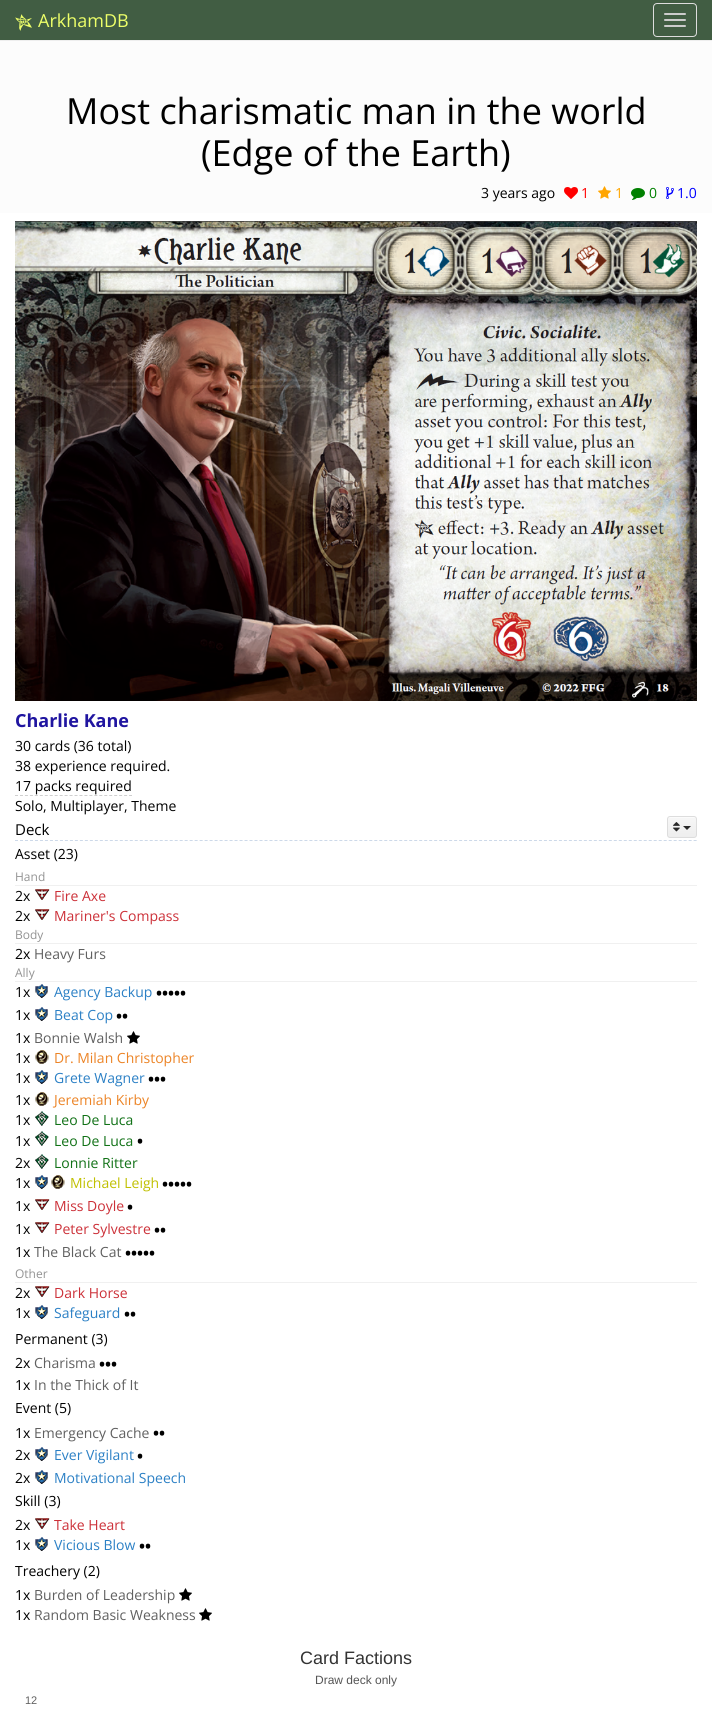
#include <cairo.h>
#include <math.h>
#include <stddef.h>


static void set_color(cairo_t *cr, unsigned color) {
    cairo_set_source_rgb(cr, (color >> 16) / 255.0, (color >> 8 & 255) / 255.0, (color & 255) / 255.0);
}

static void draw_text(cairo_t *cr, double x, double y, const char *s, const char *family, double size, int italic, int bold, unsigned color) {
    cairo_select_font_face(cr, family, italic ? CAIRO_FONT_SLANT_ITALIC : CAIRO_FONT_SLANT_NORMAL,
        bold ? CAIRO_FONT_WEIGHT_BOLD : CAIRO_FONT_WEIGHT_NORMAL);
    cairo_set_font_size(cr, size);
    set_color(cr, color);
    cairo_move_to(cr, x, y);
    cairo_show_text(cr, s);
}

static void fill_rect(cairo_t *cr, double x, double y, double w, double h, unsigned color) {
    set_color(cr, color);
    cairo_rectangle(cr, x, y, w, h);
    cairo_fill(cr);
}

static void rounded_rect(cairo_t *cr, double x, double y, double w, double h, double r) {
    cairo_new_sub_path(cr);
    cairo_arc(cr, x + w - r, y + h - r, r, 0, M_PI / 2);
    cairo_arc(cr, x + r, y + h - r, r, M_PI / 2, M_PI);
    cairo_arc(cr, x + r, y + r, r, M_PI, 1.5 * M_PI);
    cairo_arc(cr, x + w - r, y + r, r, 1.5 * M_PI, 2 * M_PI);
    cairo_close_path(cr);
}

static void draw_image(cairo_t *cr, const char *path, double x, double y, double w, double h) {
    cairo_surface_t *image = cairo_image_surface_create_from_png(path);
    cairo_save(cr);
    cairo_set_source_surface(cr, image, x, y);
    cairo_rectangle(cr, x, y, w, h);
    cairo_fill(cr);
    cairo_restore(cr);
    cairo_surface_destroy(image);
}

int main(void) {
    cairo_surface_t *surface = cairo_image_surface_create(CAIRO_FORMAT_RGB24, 712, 1726);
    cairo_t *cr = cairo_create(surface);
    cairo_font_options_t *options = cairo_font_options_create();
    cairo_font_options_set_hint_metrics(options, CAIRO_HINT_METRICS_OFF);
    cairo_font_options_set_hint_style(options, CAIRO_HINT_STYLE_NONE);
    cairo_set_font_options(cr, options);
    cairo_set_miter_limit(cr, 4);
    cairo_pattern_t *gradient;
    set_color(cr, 0xFCFCFC);
    cairo_paint(cr);
    fill_rect(cr, 0, 0, 712, 40, 0x415D43);
    fill_rect(cr, 0, 40, 712, 1, 0xEEEEEE);
    draw_image(cr, "assets/img1.png", 15, 14, 17, 17);
    draw_text(cr, 38, 27, "ArkhamDB", "Open Sans", 18, 0, 0, 0xEDFF69);
    rounded_rect(cr, 653.5, 3.5, 43, 33, 3.5);
    set_color(cr, 0xDDDDDD);
    cairo_set_line_width(cr, 1);
    cairo_stroke(cr);
    set_color(cr, 0xCCCCCC);
    rounded_rect(cr, 664, 13, 22, 2, 1);
    cairo_fill(cr);
    rounded_rect(cr, 664, 19, 22, 2, 1);
    cairo_fill(cr);
    rounded_rect(cr, 664, 25, 22, 2, 1);
    cairo_fill(cr);
    draw_text(cr, 66, 124, "Most charismatic man in the world", "Open Sans", 36, 0, 0, 0x000000);
    draw_text(cr, 201, 166, "(Edge of the Earth)", "Open Sans", 36, 0, 0, 0x000000);
    draw_text(cr, 481, 198, "3 years ago", "Open Sans", 14, 0, 0, 0x000000);
    draw_image(cr, "assets/img2.png", 564, 187, 14, 12);
    draw_text(cr, 581, 198, "1", "Open Sans", 14, 0, 0, 0xFF0000);
    draw_image(cr, "assets/img3.png", 598, 186, 13, 13);
    draw_text(cr, 615, 198, "1", "Open Sans", 14, 0, 0, 0xFFA500);
    draw_image(cr, "assets/img4.png", 631, 188, 14, 12);
    draw_text(cr, 649, 198, "0", "Open Sans", 14, 0, 0, 0x008000);
    draw_image(cr, "assets/img5.png", 666, 187, 8, 12);
    draw_text(cr, 677, 198, "1.0", "Open Sans", 14, 0, 0, 0x0000FF);
    fill_rect(cr, 0, 213, 712, 1513, 0xFFFFFF);
    draw_image(cr, "assets/img6.png", 15, 221, 682, 480);
    draw_text(cr, 15, 727, "Charlie Kane", "Open Sans", 18, 0, 1, 0x2015A0);
    draw_text(cr, 15, 751, "30 cards (36 total)", "Open Sans", 14, 0, 0, 0x000000);
    draw_text(cr, 15, 771, "38 experience required.", "Open Sans", 14, 0, 0, 0x000000);
    draw_text(cr, 15, 791, "17 packs required", "Open Sans", 14, 0, 0, 0x000000);
    cairo_new_path(cr);
    cairo_move_to(cr, 15, 795.5);
    cairo_line_to(cr, 132, 795.5);
    set_color(cr, 0xCFCFCF);
    cairo_set_dash(cr, (double[]){3, 1.96}, 2, 0);
    cairo_stroke(cr);
    draw_text(cr, 15, 811, "Solo, Multiplayer, Theme", "Open Sans", 14, 0, 0, 0x000000);
    cairo_new_path(cr);
    cairo_move_to(cr, 15, 840.5);
    cairo_line_to(cr, 697, 840.5);
    set_color(cr, 0xCDD9E9);
    cairo_set_dash(cr, (double[]){3, 1.99}, 2, 0);
    cairo_stroke(cr);
    draw_text(cr, 15, 835, "Deck", "Open Sans", 15, 0, 0, 0x000000);
    gradient = cairo_pattern_create_linear(682, 817, 682, 837);
    cairo_pattern_add_color_stop_rgba(gradient, 0, 0.996, 0.996, 0.996, 1);
    cairo_pattern_add_color_stop_rgba(gradient, 0.06, 0.965, 0.965, 0.965, 1);
    cairo_pattern_add_color_stop_rgba(gradient, 1, 0.933, 0.933, 0.933, 1);
    cairo_set_source(cr, gradient);
    cairo_pattern_destroy(gradient);
    cairo_rectangle(cr, 668, 817, 28, 20);
    cairo_fill(cr);
    rounded_rect(cr, 667.5, 816.5, 29, 21, 2.5);
    set_color(cr, 0xDDDDDD);
    cairo_set_dash(cr, NULL, 0, 0);
    cairo_stroke(cr);
    draw_image(cr, "assets/img7.png", 673, 822, 7, 10);
    set_color(cr, 0x292929);
    cairo_new_path(cr);
    cairo_move_to(cr, 683, 826);
    cairo_line_to(cr, 691, 826);
    cairo_line_to(cr, 687, 830);
    cairo_close_path(cr);
    cairo_fill(cr);
    draw_text(cr, 15, 859, "Asset (23)", "Open Sans", 14, 0, 0, 0x000000);
    fill_rect(cr, 15, 885, 682, 1, 0xF0F0F0);
    draw_text(cr, 15, 881, "Hand", "Open Sans", 12, 0, 0, 0x939393);
    draw_text(cr, 15, 901, "2x", "Open Sans", 14, 0, 0, 0x000000);
    draw_image(cr, "assets/img8.png", 35, 889, 15, 11);
    draw_text(cr, 54, 901, "Fire Axe", "Open Sans", 14, 0, 0, 0xCC3038);
    draw_text(cr, 15, 921, "2x", "Open Sans", 14, 0, 0, 0x000000);
    draw_image(cr, "assets/img8.png", 35, 909, 15, 11);
    draw_text(cr, 54, 921, "Mariner's Compass", "Open Sans", 14, 0, 0, 0xCC3038);
    fill_rect(cr, 15, 943, 682, 1, 0xF0F0F0);
    draw_text(cr, 15, 939, "Body", "Open Sans", 12, 0, 0, 0x939393);
    draw_text(cr, 15, 959, "2x", "Open Sans", 14, 0, 0, 0x000000);
    draw_text(cr, 34, 959, "Heavy Furs", "Open Sans", 14, 0, 0, 0x606060);
    fill_rect(cr, 15, 981, 682, 1, 0xF0F0F0);
    draw_text(cr, 15, 977, "Ally", "Open Sans", 12, 0, 0, 0x939393);
    draw_text(cr, 15, 997, "1x", "Open Sans", 14, 0, 0, 0x000000);
    draw_image(cr, "assets/img9.png", 35, 984, 13, 14);
    draw_text(cr, 54, 997, "Agency Backup", "Open Sans", 14, 0, 0, 0x2B80C5);
    draw_text(cr, 156, 999, "•••••", "Open Sans", 16, 0, 1, 0x000000);
    draw_text(cr, 15, 1020, "1x", "Open Sans", 14, 0, 0, 0x000000);
    draw_image(cr, "assets/img9.png", 35, 1007, 13, 14);
    draw_text(cr, 54, 1020, "Beat Cop", "Open Sans", 14, 0, 0, 0x2B80C5);
    draw_text(cr, 116, 1022, "••", "Open Sans", 16, 0, 1, 0x000000);
    draw_text(cr, 15, 1043, "1x", "Open Sans", 14, 0, 0, 0x000000);
    draw_text(cr, 34, 1043, "Bonnie Walsh", "Open Sans", 14, 0, 0, 0x606060);
    draw_image(cr, "assets/img10.png", 127, 1031, 13, 13);
    draw_text(cr, 15, 1063, "1x", "Open Sans", 14, 0, 0, 0x000000);
    draw_image(cr, "assets/img11.png", 35, 1050, 14, 14);
    draw_text(cr, 54, 1063, "Dr. Milan Christopher", "Open Sans", 14, 0, 0, 0xEC8426);
    draw_text(cr, 15, 1083, "1x", "Open Sans", 14, 0, 0, 0x000000);
    draw_image(cr, "assets/img9.png", 35, 1070, 13, 14);
    draw_text(cr, 54, 1083, "Grete Wagner", "Open Sans", 14, 0, 0, 0x2B80C5);
    draw_text(cr, 148, 1085, "•••", "Open Sans", 16, 0, 1, 0x000000);
    draw_text(cr, 15, 1105, "1x", "Open Sans", 14, 0, 0, 0x000000);
    draw_image(cr, "assets/img11.png", 35, 1092, 14, 14);
    draw_text(cr, 54, 1105, "Jeremiah Kirby", "Open Sans", 14, 0, 0, 0xEC8426);
    draw_text(cr, 15, 1125, "1x", "Open Sans", 14, 0, 0, 0x000000);
    draw_image(cr, "assets/img12.png", 35, 1111, 14, 15);
    draw_text(cr, 54, 1125, "Leo De Luca", "Open Sans", 14, 0, 0, 0x107116);
    draw_text(cr, 15, 1146, "1x", "Open Sans", 14, 0, 0, 0x000000);
    draw_image(cr, "assets/img12.png", 35, 1131, 14, 15);
    draw_text(cr, 54, 1146, "Leo De Luca", "Open Sans", 14, 0, 0, 0x107116);
    draw_text(cr, 137, 1147, "•", "Open Sans", 16, 0, 1, 0x000000);
    draw_text(cr, 15, 1168, "2x", "Open Sans", 14, 0, 0, 0x000000);
    draw_image(cr, "assets/img12.png", 35, 1154, 14, 15);
    draw_text(cr, 54, 1168, "Lonnie Ritter", "Open Sans", 14, 0, 0, 0x107116);
    draw_text(cr, 15, 1188, "1x", "Open Sans", 14, 0, 0, 0x000000);
    draw_image(cr, "assets/img9.png", 35, 1175, 13, 14);
    draw_image(cr, "assets/img11.png", 51, 1175, 14, 14);
    draw_text(cr, 70, 1188, "Michael Leigh", "Open Sans", 14, 0, 0, 0xC0C000);
    draw_text(cr, 162, 1190, "•••••", "Open Sans", 16, 0, 1, 0x000000);
    draw_text(cr, 15, 1211, "1x", "Open Sans", 14, 0, 0, 0x000000);
    draw_image(cr, "assets/img8.png", 35, 1199, 15, 11);
    draw_text(cr, 54, 1211, "Miss Doyle", "Open Sans", 14, 0, 0, 0xCC3038);
    draw_text(cr, 127, 1213, "•", "Open Sans", 16, 0, 1, 0x000000);
    draw_text(cr, 15, 1234, "1x", "Open Sans", 14, 0, 0, 0x000000);
    draw_image(cr, "assets/img8.png", 35, 1222, 15, 11);
    draw_text(cr, 54, 1234, "Peter Sylvestre", "Open Sans", 14, 0, 0, 0xCC3038);
    draw_text(cr, 154, 1236, "••", "Open Sans", 16, 0, 1, 0x000000);
    draw_text(cr, 15, 1257, "1x", "Open Sans", 14, 0, 0, 0x000000);
    draw_text(cr, 34, 1257, "The Black Cat", "Open Sans", 14, 0, 0, 0x606060);
    draw_text(cr, 125, 1259, "•••••", "Open Sans", 16, 0, 1, 0x000000);
    fill_rect(cr, 15, 1282, 682, 1, 0xF0F0F0);
    draw_text(cr, 15, 1278, "Other", "Open Sans", 12, 0, 0, 0x939393);
    draw_text(cr, 15, 1298, "2x", "Open Sans", 14, 0, 0, 0x000000);
    draw_image(cr, "assets/img8.png", 35, 1286, 15, 11);
    draw_text(cr, 54, 1298, "Dark Horse", "Open Sans", 14, 0, 0, 0xCC3038);
    draw_text(cr, 15, 1318, "1x", "Open Sans", 14, 0, 0, 0x000000);
    draw_image(cr, "assets/img9.png", 35, 1305, 13, 14);
    draw_text(cr, 54, 1318, "Safeguard", "Open Sans", 14, 0, 0, 0x2B80C5);
    draw_text(cr, 124, 1320, "••", "Open Sans", 16, 0, 1, 0x000000);
    draw_text(cr, 15, 1344, "Permanent (3)", "Open Sans", 14, 0, 0, 0x000000);
    draw_text(cr, 15, 1368, "2x", "Open Sans", 14, 0, 0, 0x000000);
    draw_text(cr, 34, 1368, "Charisma", "Open Sans", 14, 0, 0, 0x606060);
    draw_text(cr, 99, 1370, "•••", "Open Sans", 16, 0, 1, 0x000000);
    draw_text(cr, 15, 1390, "1x", "Open Sans", 14, 0, 0, 0x000000);
    draw_text(cr, 34, 1390, "In the Thick of It", "Open Sans", 14, 0, 0, 0x606060);
    draw_text(cr, 15, 1413, "Event (5)", "Open Sans", 14, 0, 0, 0x000000);
    draw_text(cr, 15, 1438, "1x", "Open Sans", 14, 0, 0, 0x000000);
    draw_text(cr, 34, 1438, "Emergency Cache", "Open Sans", 14, 0, 0, 0x606060);
    draw_text(cr, 153, 1439, "••", "Open Sans", 16, 0, 1, 0x000000);
    draw_text(cr, 15, 1460, "2x", "Open Sans", 14, 0, 0, 0x000000);
    draw_image(cr, "assets/img9.png", 35, 1447, 13, 14);
    draw_text(cr, 54, 1460, "Ever Vigilant", "Open Sans", 14, 0, 0, 0x2B80C5);
    draw_text(cr, 137, 1462, "•", "Open Sans", 16, 0, 1, 0x000000);
    draw_text(cr, 15, 1483, "2x", "Open Sans", 14, 0, 0, 0x000000);
    draw_image(cr, "assets/img9.png", 35, 1470, 13, 14);
    draw_text(cr, 54, 1483, "Motivational Speech", "Open Sans", 14, 0, 0, 0x2B80C5);
    draw_text(cr, 15, 1506, "Skill (3)", "Open Sans", 14, 0, 0, 0x000000);
    draw_text(cr, 15, 1530, "2x", "Open Sans", 14, 0, 0, 0x000000);
    draw_image(cr, "assets/img8.png", 35, 1518, 15, 11);
    draw_text(cr, 54, 1530, "Take Heart", "Open Sans", 14, 0, 0, 0xCC3038);
    draw_text(cr, 15, 1550, "1x", "Open Sans", 14, 0, 0, 0x000000);
    draw_image(cr, "assets/img9.png", 35, 1537, 13, 14);
    draw_text(cr, 54, 1550, "Vicious Blow", "Open Sans", 14, 0, 0, 0x2B80C5);
    draw_text(cr, 139, 1552, "••", "Open Sans", 16, 0, 1, 0x000000);
    draw_text(cr, 15, 1576, "Treachery (2)", "Open Sans", 14, 0, 0, 0x000000);
    draw_text(cr, 15, 1600, "1x", "Open Sans", 14, 0, 0, 0x000000);
    draw_text(cr, 34, 1600, "Burden of Leadership", "Open Sans", 14, 0, 0, 0x606060);
    draw_image(cr, "assets/img10.png", 179, 1588, 13, 13);
    draw_text(cr, 15, 1620, "1x", "Open Sans", 14, 0, 0, 0x000000);
    draw_text(cr, 34, 1620, "Random Basic Weakness", "Open Sans", 14, 0, 0, 0x606060);
    draw_image(cr, "assets/img10.png", 199, 1608, 13, 13);
    draw_text(cr, 300, 1664, "Card Factions", "Liberation Sans", 18, 0, 0, 0x333333);
    draw_text(cr, 315, 1684, "Draw deck only", "Liberation Sans", 12, 0, 0, 0x555555);
    draw_text(cr, 25, 1704, "12", "Liberation Sans", 11, 0, 0, 0x606060);
    cairo_surface_write_to_png(surface, "output.png");
    cairo_font_options_destroy(options);
    cairo_destroy(cr);
    cairo_surface_destroy(surface);
    return 0;
}
